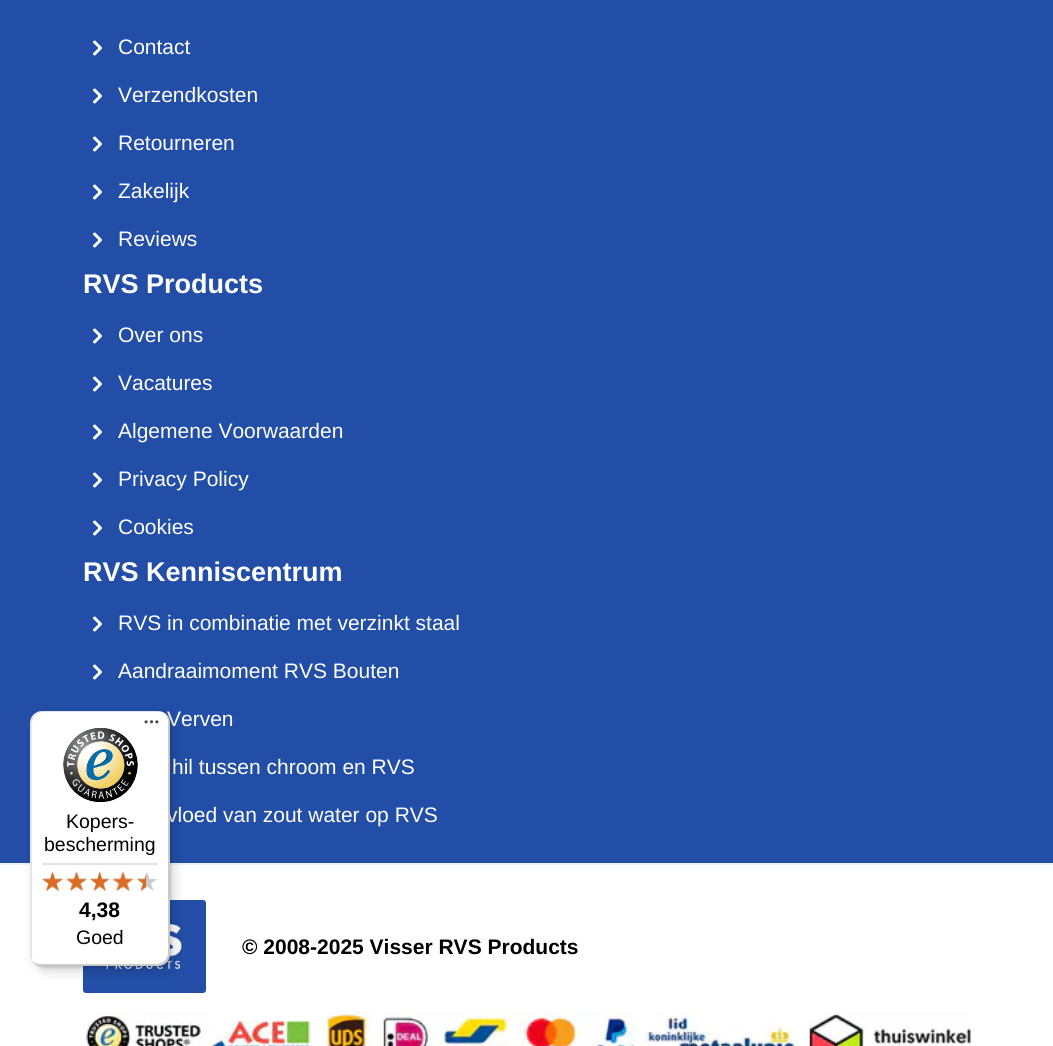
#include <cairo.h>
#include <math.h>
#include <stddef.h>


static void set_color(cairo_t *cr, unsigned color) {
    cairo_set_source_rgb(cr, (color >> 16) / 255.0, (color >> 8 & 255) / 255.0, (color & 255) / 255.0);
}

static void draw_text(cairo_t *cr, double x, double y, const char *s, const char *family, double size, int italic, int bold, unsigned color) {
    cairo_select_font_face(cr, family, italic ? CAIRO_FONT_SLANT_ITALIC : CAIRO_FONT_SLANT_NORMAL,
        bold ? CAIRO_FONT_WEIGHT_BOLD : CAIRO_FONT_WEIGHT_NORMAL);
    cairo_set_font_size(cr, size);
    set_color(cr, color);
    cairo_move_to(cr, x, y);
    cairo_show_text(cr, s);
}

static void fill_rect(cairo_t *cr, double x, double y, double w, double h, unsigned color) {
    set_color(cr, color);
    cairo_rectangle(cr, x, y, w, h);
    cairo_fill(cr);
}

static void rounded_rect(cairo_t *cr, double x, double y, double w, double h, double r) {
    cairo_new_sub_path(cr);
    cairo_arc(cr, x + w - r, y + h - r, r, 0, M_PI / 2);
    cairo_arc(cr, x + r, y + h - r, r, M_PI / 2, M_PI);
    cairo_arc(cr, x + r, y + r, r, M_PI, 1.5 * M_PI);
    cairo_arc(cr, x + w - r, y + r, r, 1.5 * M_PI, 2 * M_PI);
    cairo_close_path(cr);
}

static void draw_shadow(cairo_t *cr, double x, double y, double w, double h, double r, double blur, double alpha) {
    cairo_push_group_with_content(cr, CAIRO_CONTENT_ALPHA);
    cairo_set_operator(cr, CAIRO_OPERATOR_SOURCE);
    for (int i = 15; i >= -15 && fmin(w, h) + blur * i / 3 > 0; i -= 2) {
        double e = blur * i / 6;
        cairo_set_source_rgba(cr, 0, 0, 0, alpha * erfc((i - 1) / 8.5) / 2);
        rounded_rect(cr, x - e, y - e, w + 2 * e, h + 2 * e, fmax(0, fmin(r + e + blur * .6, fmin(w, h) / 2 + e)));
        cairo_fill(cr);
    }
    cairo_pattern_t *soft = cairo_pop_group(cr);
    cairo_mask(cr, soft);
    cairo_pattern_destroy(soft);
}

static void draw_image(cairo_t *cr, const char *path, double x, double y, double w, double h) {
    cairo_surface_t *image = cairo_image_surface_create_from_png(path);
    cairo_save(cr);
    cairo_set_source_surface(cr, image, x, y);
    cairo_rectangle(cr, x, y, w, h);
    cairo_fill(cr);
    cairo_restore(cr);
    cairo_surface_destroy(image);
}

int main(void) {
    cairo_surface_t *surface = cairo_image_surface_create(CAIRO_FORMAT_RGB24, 1053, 1046);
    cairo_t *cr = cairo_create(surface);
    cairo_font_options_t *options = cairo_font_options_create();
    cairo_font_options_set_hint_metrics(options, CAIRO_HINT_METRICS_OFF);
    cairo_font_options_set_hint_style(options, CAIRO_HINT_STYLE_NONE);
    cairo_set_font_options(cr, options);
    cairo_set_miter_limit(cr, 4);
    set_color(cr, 0xFFFFFF);
    cairo_paint(cr);
    fill_rect(cr, 0, 0, 1053, 863, 0x224EA7);
    draw_image(cr, "assets/img1.png", 93, 40, 9, 16);
    draw_text(cr, 118, 54, "Contact", "Liberation Sans", 21, 0, 0, 0xFFFFFF);
    draw_image(cr, "assets/img1.png", 93, 88, 9, 16);
    draw_text(cr, 118, 102, "Verzendkosten", "Liberation Sans", 21, 0, 0, 0xFFFFFF);
    draw_image(cr, "assets/img1.png", 93, 136, 9, 16);
    draw_text(cr, 118, 150, "Retourneren", "Liberation Sans", 21, 0, 0, 0xFFFFFF);
    draw_image(cr, "assets/img1.png", 93, 184, 9, 16);
    draw_text(cr, 118, 198, "Zakelijk", "Liberation Sans", 21, 0, 0, 0xFFFFFF);
    draw_image(cr, "assets/img1.png", 93, 232, 9, 16);
    draw_text(cr, 118, 246, "Reviews", "Liberation Sans", 21, 0, 0, 0xFFFFFF);
    draw_text(cr, 83, 293, "RVS Products", "Liberation Sans", 27, 0, 1, 0xFFFFFF);
    draw_image(cr, "assets/img1.png", 93, 328, 9, 16);
    draw_text(cr, 118, 342, "Over ons", "Liberation Sans", 21, 0, 0, 0xFFFFFF);
    draw_image(cr, "assets/img1.png", 93, 376, 9, 16);
    draw_text(cr, 118, 390, "Vacatures", "Liberation Sans", 21, 0, 0, 0xFFFFFF);
    draw_image(cr, "assets/img1.png", 93, 424, 9, 16);
    draw_text(cr, 118, 438, "Algemene Voorwaarden", "Liberation Sans", 21, 0, 0, 0xFFFFFF);
    draw_image(cr, "assets/img1.png", 93, 472, 9, 16);
    draw_text(cr, 118, 486, "Privacy Policy", "Liberation Sans", 21, 0, 0, 0xFFFFFF);
    draw_image(cr, "assets/img1.png", 93, 520, 9, 16);
    draw_text(cr, 118, 534, "Cookies", "Liberation Sans", 21, 0, 0, 0xFFFFFF);
    draw_text(cr, 83, 581, "RVS Kenniscentrum", "Liberation Sans", 27, 0, 1, 0xFFFFFF);
    draw_image(cr, "assets/img1.png", 93, 616, 9, 16);
    draw_text(cr, 118, 630, "RVS in combinatie met verzinkt staal", "Liberation Sans", 21, 0, 0, 0xFFFFFF);
    draw_image(cr, "assets/img1.png", 93, 664, 9, 16);
    draw_text(cr, 118, 678, "Aandraaimoment RVS Bouten", "Liberation Sans", 21, 0, 0, 0xFFFFFF);
    draw_text(cr, 167, 726, "Verven", "Liberation Sans", 21, 0, 0, 0xFFFFFF);
    draw_text(cr, 172, 774, "hil tussen chroom en RVS", "Liberation Sans", 21, 0, 0, 0xFFFFFF);
    draw_text(cr, 167, 822, "vloed van zout water op RVS", "Liberation Sans", 21, 0, 0, 0xFFFFFF);
    fill_rect(cr, 0, 863, 1053, 2, 0xE9F2FC);
    set_color(cr, 0x224EA7);
    rounded_rect(cr, 83, 900, 123, 93, 3);
    cairo_fill(cr);
    draw_image(cr, "assets/img2.png", 106, 924, 76, 45);
    draw_text(cr, 242, 954, "© 2008-2025 Visser RVS Products", "Liberation Sans", 21, 0, 1, 0x000000);
    draw_image(cr, "assets/img3.png", 83, 1011, 888, 35);
    set_color(cr, 0x000000);
    draw_shadow(cr, 35, 716, 139, 255, 12, 6, 0.15);
    draw_shadow(cr, 32, 713, 139, 255, 12, 1.5, 0.15);
    set_color(cr, 0xFFFFFF);
    rounded_rect(cr, 30, 711, 140, 255, 12);
    cairo_fill(cr);
    cairo_set_source_rgba(cr, 0, 0, 0, 0.1);
    cairo_new_path(cr);
    cairo_move_to(cr, 44, 712);
    cairo_line_to(cr, 159, 712);
    cairo_curve_to(cr, 162, 712, 165, 713, 167, 715);
    cairo_curve_to(cr, 165, 713, 162, 711, 158, 711);
    cairo_line_to(cr, 42, 711);
    cairo_curve_to(cr, 35, 711, 30, 716, 30, 723);
    cairo_line_to(cr, 30, 954);
    cairo_curve_to(cr, 30, 958, 32, 961, 35, 964);
    cairo_curve_to(cr, 33, 961, 32, 959, 32, 956);
    cairo_line_to(cr, 32, 724);
    cairo_curve_to(cr, 32, 718, 37, 712, 44, 712);
    cairo_close_path(cr);
    cairo_fill(cr);
    cairo_set_source_rgba(cr, 0, 0, 0, 0.2);
    cairo_new_path(cr);
    cairo_move_to(cr, 32, 961);
    cairo_curve_to(cr, 35, 964, 38, 966, 42, 966);
    cairo_line_to(cr, 158, 966);
    cairo_curve_to(cr, 165, 966, 170, 961, 170, 954);
    cairo_line_to(cr, 170, 723);
    cairo_curve_to(cr, 170, 718, 167, 714, 163, 712);
    cairo_curve_to(cr, 166, 714, 168, 718, 168, 722);
    cairo_line_to(cr, 168, 952);
    cairo_curve_to(cr, 168, 959, 163, 964, 156, 964);
    cairo_line_to(cr, 40, 964);
    cairo_curve_to(cr, 37, 964, 35, 963, 32, 961);
    cairo_close_path(cr);
    cairo_fill(cr);
    cairo_set_source_rgba(cr, 0.196, 0.196, 0.196, 0.2);
    cairo_new_path(cr);
    cairo_move_to(cr, 34, 963);
    cairo_curve_to(cr, 36, 965, 39, 966, 42, 966);
    cairo_line_to(cr, 158, 966);
    cairo_curve_to(cr, 165, 966, 170, 961, 170, 954);
    cairo_line_to(cr, 170, 723);
    cairo_curve_to(cr, 170, 719, 168, 716, 166, 714);
    cairo_curve_to(cr, 168, 716, 169, 719, 169, 722);
    cairo_line_to(cr, 169, 953);
    cairo_curve_to(cr, 169, 960, 163, 965, 157, 965);
    cairo_line_to(cr, 41, 965);
    cairo_curve_to(cr, 38, 965, 36, 964, 34, 963);
    cairo_close_path(cr);
    cairo_fill(cr);
    cairo_set_source_rgba(cr, 1, 1, 1, 0.3);
    cairo_new_path(cr);
    cairo_move_to(cr, 33, 962);
    cairo_curve_to(cr, 35, 964, 38, 966, 42, 966);
    cairo_line_to(cr, 158, 966);
    cairo_curve_to(cr, 165, 966, 170, 961, 170, 954);
    cairo_line_to(cr, 170, 723);
    cairo_curve_to(cr, 170, 718, 168, 715, 164, 713);
    cairo_curve_to(cr, 167, 715, 169, 718, 169, 722);
    cairo_line_to(cr, 169, 953);
    cairo_curve_to(cr, 169, 960, 163, 965, 157, 965);
    cairo_line_to(cr, 41, 965);
    cairo_curve_to(cr, 38, 965, 35, 964, 33, 962);
    cairo_close_path(cr);
    cairo_fill(cr);
    draw_image(cr, "assets/img4.png", 144, 720, 15, 4);
    draw_image(cr, "assets/img5.png", 63, 728, 75, 75);
    draw_text(cr, 66, 828, "Kopers-", "Liberation Sans", 19.5, 0, 0, 0x000000);
    draw_text(cr, 44, 851, "bescherming", "Liberation Sans", 19.5, 0, 0, 0x000000);
    fill_rect(cr, 42, 863, 116, 2, 0xE5E5E5);
    draw_image(cr, "assets/img11.png", 42, 872, 21, 19);
    draw_image(cr, "assets/img6.png", 42, 871, 21, 20);
    draw_image(cr, "assets/img12.png", 66, 872, 21, 19);
    draw_image(cr, "assets/img7.png", 66, 871, 21, 20);
    draw_image(cr, "assets/img13.png", 90, 872, 19, 19);
    draw_image(cr, "assets/img8.png", 90, 871, 19, 20);
    draw_image(cr, "assets/img14.png", 113, 872, 20, 19);
    draw_image(cr, "assets/img9.png", 112, 871, 22, 20);
    draw_image(cr, "assets/img15.png", 137, 872, 20, 19);
    draw_image(cr, "assets/img10.png", 137, 874, 9, 17);
    draw_text(cr, 79, 917, "4,38", "Liberation Sans", 21, 0, 1, 0x000000);
    draw_text(cr, 76, 944, "Goed", "Liberation Sans", 19.5, 0, 0, 0x000000);
    cairo_surface_write_to_png(surface, "output.png");
    cairo_font_options_destroy(options);
    cairo_destroy(cr);
    cairo_surface_destroy(surface);
    return 0;
}
